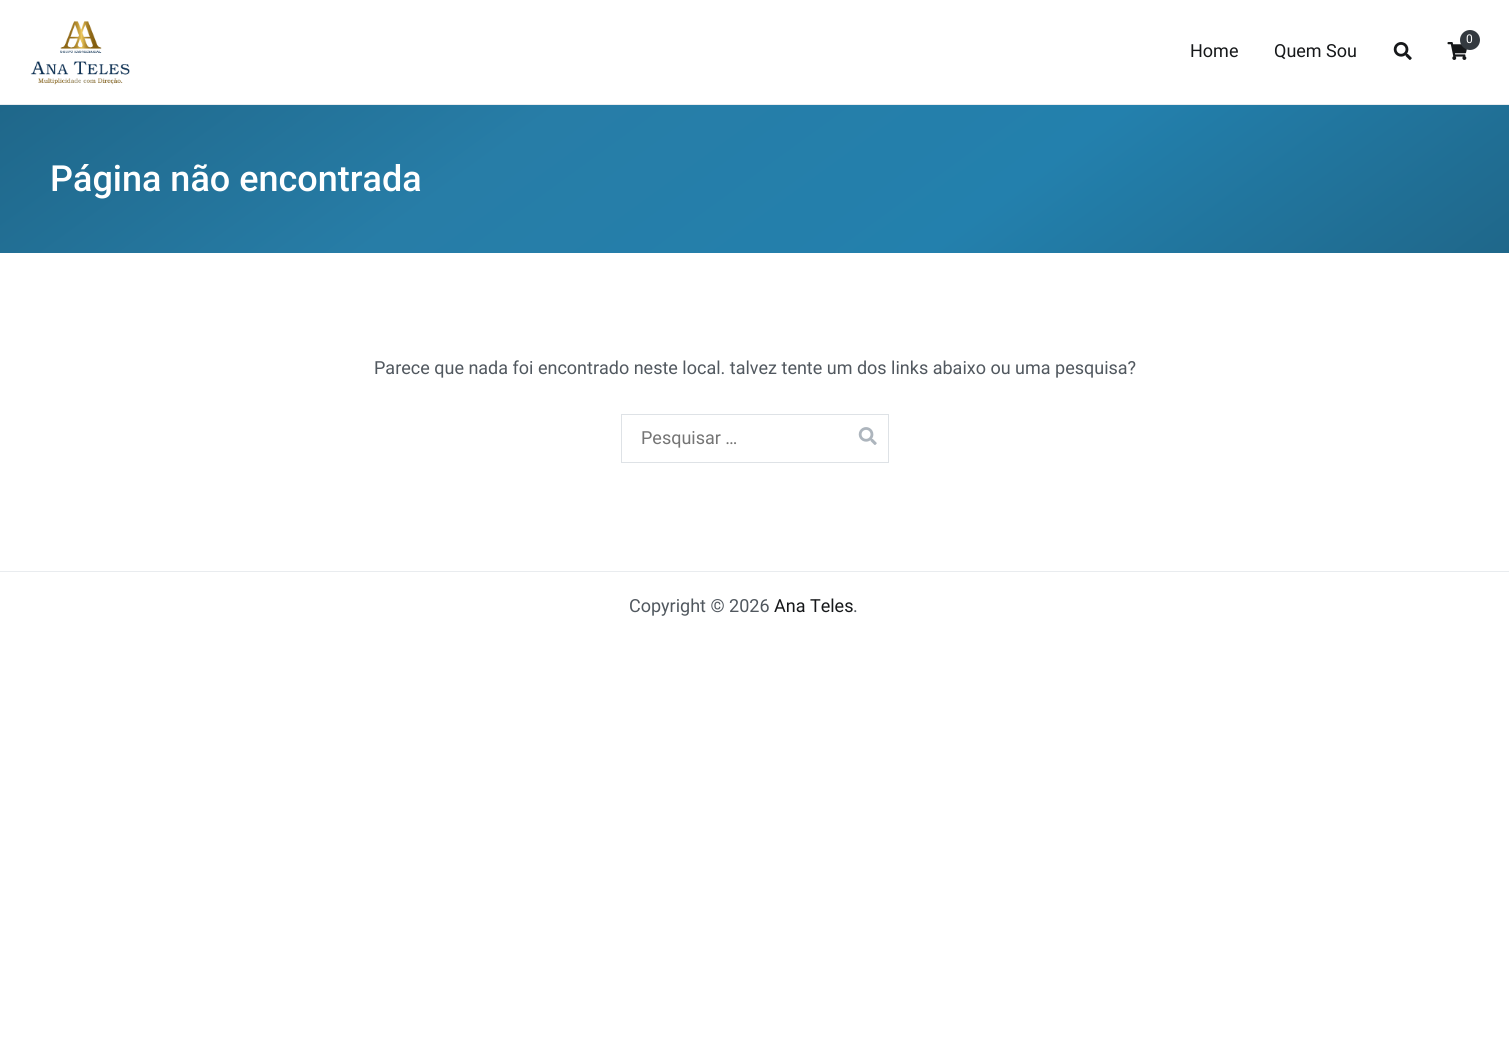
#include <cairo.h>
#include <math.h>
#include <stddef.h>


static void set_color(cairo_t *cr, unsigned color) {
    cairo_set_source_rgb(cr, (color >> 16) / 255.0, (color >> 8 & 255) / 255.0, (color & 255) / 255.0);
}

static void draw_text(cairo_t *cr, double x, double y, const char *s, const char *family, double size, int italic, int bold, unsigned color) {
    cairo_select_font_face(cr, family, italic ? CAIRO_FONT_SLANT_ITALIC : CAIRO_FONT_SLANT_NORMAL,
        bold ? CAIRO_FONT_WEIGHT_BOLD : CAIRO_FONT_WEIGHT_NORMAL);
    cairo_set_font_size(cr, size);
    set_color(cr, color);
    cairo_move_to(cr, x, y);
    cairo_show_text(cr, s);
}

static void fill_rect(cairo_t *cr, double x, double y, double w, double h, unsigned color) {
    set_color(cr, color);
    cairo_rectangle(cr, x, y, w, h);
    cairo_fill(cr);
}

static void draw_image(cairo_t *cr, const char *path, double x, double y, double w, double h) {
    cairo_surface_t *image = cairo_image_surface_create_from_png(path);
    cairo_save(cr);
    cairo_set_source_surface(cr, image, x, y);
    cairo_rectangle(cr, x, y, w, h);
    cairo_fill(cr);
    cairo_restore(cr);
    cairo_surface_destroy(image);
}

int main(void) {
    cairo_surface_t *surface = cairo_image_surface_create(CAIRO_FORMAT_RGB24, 1509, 1063);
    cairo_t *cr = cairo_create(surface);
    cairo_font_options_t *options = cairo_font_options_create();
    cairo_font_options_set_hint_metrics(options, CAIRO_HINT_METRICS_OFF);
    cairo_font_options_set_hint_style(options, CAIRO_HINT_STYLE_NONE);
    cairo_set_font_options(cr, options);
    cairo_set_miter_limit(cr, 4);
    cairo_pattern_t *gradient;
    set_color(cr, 0xFFFFFF);
    cairo_paint(cr);
    fill_rect(cr, 0, 104, 1509, 1, 0xE9ECEF);
    draw_image(cr, "assets/img1.png", 30, 21, 100, 64);
    draw_image(cr, "assets/img2.png", 1447, 42, 20, 18);
    set_color(cr, 0x343A40);
    cairo_arc(cr, 1470, 40, 10, 0, 2 * M_PI);
    cairo_fill(cr);
    draw_text(cr, 1466, 43, "0", "Roboto", 12, 0, 0, 0xFFFFFF);
    draw_text(cr, 1190, 57, "Home", "Roboto", 18, 0, 0, 0x16181A);
    draw_text(cr, 1274, 57, "Quem Sou", "Roboto", 18, 0, 0, 0x16181A);
    draw_image(cr, "assets/img3.png", 1393, 42, 19, 18);
    gradient = cairo_pattern_create_linear(459, -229, 1051, 586);
    cairo_pattern_add_color_stop_rgba(gradient, 0, 0.122, 0.404, 0.541, 1);
    cairo_pattern_add_color_stop_rgba(gradient, 0.33, 0.153, 0.49, 0.655, 1);
    cairo_pattern_add_color_stop_rgba(gradient, 0.66, 0.137, 0.502, 0.678, 1);
    cairo_pattern_add_color_stop_rgba(gradient, 1, 0.122, 0.404, 0.541, 1);
    cairo_set_source(cr, gradient);
    cairo_pattern_destroy(gradient);
    cairo_rectangle(cr, 0, 105, 1509, 148);
    cairo_fill(cr);
    draw_text(cr, 50, 191, "Página não encontrada", "Roboto Medium", 36, 0, 0, 0xFFFFFF);
    draw_text(cr, 374, 374, "Parece que nada foi encontrado neste local. talvez tente um dos links abaixo ou uma pesquisa?", "Roboto", 18, 0, 0, 0x51585F);
    cairo_rectangle(cr, 621.5, 414.5, 267, 48);
    set_color(cr, 0xDEE2E6);
    cairo_set_line_width(cr, 1);
    cairo_stroke(cr);
    draw_text(cr, 641, 444, "Pesquisar …", "Roboto", 18, 0, 0, 0x757575);
    draw_image(cr, "assets/img4.png", 858, 427, 19, 18);
    fill_rect(cr, 0, 571, 1509, 1, 0xE9ECEF);
    draw_text(cr, 629, 612, "Copyright © 2026", "Roboto", 18, 0, 0, 0x51585F);
    draw_text(cr, 774, 612, "Ana Teles", "Roboto", 18, 0, 0, 0x16181A);
    draw_text(cr, 853, 612, ".", "Roboto", 18, 0, 0, 0x51585F);
    cairo_surface_write_to_png(surface, "output.png");
    cairo_font_options_destroy(options);
    cairo_destroy(cr);
    cairo_surface_destroy(surface);
    return 0;
}
